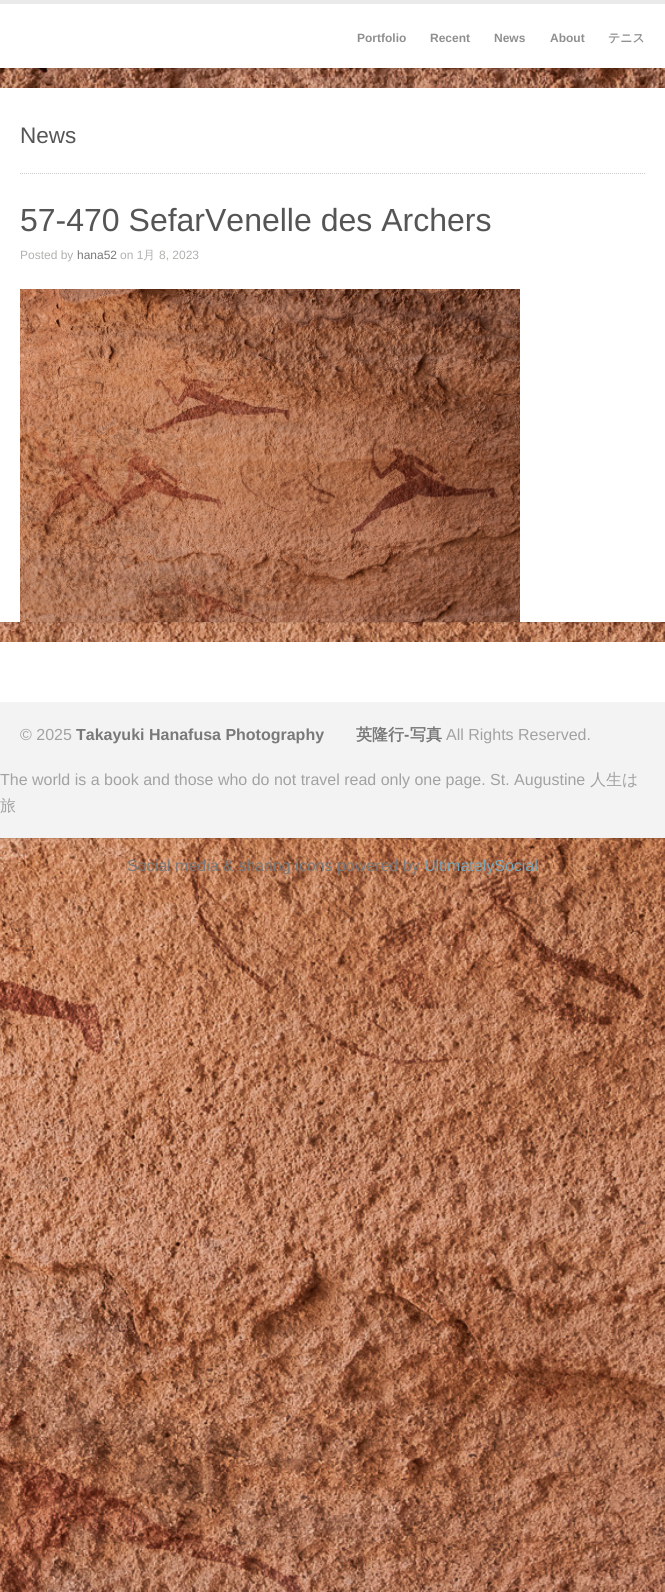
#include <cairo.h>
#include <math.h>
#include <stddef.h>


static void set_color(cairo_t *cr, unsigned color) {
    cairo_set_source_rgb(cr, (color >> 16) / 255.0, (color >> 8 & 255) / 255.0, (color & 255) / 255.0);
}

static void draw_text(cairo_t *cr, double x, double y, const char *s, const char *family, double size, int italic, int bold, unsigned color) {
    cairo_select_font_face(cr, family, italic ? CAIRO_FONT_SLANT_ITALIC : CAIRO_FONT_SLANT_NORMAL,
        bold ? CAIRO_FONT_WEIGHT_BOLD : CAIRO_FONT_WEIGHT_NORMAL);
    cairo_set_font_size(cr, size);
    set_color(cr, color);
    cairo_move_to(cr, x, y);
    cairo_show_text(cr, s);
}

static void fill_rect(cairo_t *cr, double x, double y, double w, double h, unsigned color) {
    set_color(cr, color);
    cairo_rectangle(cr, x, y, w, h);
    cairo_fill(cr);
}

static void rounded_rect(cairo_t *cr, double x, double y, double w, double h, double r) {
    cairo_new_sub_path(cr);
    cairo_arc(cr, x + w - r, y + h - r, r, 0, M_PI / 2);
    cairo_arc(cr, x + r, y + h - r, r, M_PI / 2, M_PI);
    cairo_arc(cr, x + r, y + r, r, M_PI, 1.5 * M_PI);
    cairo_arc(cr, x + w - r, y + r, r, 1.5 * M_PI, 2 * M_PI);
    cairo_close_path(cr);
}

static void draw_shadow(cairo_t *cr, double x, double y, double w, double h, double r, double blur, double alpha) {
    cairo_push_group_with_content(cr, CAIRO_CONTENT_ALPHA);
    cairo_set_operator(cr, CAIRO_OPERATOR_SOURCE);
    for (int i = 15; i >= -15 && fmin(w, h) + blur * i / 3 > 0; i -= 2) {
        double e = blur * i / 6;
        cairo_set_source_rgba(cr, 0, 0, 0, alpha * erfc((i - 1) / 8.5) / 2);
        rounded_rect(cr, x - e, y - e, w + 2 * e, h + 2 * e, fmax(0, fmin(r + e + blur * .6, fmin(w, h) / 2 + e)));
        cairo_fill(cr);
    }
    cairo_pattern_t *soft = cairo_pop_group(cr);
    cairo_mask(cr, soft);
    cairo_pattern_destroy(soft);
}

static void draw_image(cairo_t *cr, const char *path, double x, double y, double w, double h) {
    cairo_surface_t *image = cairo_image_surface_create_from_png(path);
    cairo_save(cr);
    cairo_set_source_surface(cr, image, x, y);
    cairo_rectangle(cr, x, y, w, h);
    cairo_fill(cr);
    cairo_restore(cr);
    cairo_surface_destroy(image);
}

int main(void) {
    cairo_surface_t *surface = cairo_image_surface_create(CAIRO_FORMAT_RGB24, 665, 1592);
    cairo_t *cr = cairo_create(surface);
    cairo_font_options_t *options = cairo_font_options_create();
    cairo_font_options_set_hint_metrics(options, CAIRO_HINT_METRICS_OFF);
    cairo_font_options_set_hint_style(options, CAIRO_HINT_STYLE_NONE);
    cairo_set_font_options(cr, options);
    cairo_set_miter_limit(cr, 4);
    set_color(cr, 0xFFFFFF);
    cairo_paint(cr);
    draw_image(cr, "assets/img3.png", 0, 68, 665, 1524);
    set_color(cr, 0x000000);
    draw_shadow(cr, 0, 1, 665, 68, 0, 0.5, 0.1);
    fill_rect(cr, 0, 4, 665, 64, 0xFFFFFF);
    fill_rect(cr, 0, 0, 665, 4, 0xEAEAEA);
    draw_text(cr, 357, 42, "Portfolio", "Liberation Sans", 12, 0, 1, 0x8F8F8F);
    draw_text(cr, 430, 42, "Recent", "Liberation Sans", 12, 0, 1, 0x8F8F8F);
    draw_text(cr, 494, 42, "News", "Liberation Sans", 12, 0, 1, 0x8F8F8F);
    draw_text(cr, 550, 42, "About", "Liberation Sans", 12, 0, 1, 0x8F8F8F);
    draw_text(cr, 608, 42, "テニス", "WenQuanYi Zen Hei", 12, 0, 1, 0x8F8F8F);
    set_color(cr, 0x000000);
    draw_shadow(cr, 0, 89, 665, 534, 0, 0.5, 0.1);
    fill_rect(cr, 0, 88, 665, 534, 0xFFFFFF);
    draw_image(cr, "assets/img1.png", 20, 173, 625, 1);
    draw_text(cr, 20, 143, "News", "Liberation Sans", 22.5, 0, 0, 0x555555);
    draw_text(cr, 20, 231, "57-470 SefarVenelle des Archers", "Liberation Sans", 32, 0, 0, 0x555555);
    draw_text(cr, 20, 259, "Posted by", "Liberation Sans", 12, 0, 0, 0xB0B0AD);
    draw_text(cr, 77, 259, "hana52", "Liberation Sans", 12, 0, 0, 0x797979);
    draw_text(cr, 120, 259, "on 1", "Liberation Sans", 12, 0, 0, 0xB0B0AD);
    draw_text(cr, 143, 259, "月", "WenQuanYi Zen Hei Medium", 12, 0, 0, 0xB0B0AD);
    draw_text(cr, 159, 259, "8, 2023", "Liberation Sans", 12, 0, 0, 0xB0B0AD);
    draw_image(cr, "assets/img2.png", 20, 289, 500, 333);
    set_color(cr, 0x000000);
    draw_shadow(cr, 0, 643, 665, 196, 0, 0.5, 0.1);
    fill_rect(cr, 0, 642, 665, 60, 0xFFFFFF);
    fill_rect(cr, 0, 702, 665, 136, 0xF3F3F3);
    draw_text(cr, 20, 740, "© 2025", "Liberation Sans", 16, 0, 0, 0xA2A2A2);
    draw_text(cr, 76, 740, "Takayuki Hanafusa Photography", "Liberation Sans", 16, 0, 1, 0x797979);
    draw_text(cr, 356, 740, "英隆行", "WenQuanYi Zen Hei", 16, 0, 1, 0x797979);
    draw_text(cr, 404, 740, "-", "Liberation Sans", 16, 0, 1, 0x797979);
    draw_text(cr, 410, 740, "写真", "WenQuanYi Zen Hei", 16, 0, 1, 0x797979);
    draw_text(cr, 446, 740, "All Rights Reserved.", "Liberation Sans", 16, 0, 0, 0xA2A2A2);
    draw_text(cr, 0, 785, "The world is a book and those who do not travel read only one page. St. Augustine", "Liberation Sans", 16, 0, 0, 0xA2A2A2);
    draw_text(cr, 590, 785, "人生は", "WenQuanYi Zen Hei Medium", 16, 0, 0, 0xA2A2A2);
    draw_text(cr, 0, 811, "旅", "WenQuanYi Zen Hei Medium", 16, 0, 0, 0xA2A2A2);
    draw_text(cr, 127, 871, "Social media & sharing icons powered by", "Liberation Sans", 16, 0, 0, 0x797979);
    draw_text(cr, 424, 871, "UltimatelySocial", "Liberation Sans", 16, 0, 0, 0x77A7B9);
    cairo_surface_write_to_png(surface, "output.png");
    cairo_font_options_destroy(options);
    cairo_destroy(cr);
    cairo_surface_destroy(surface);
    return 0;
}
